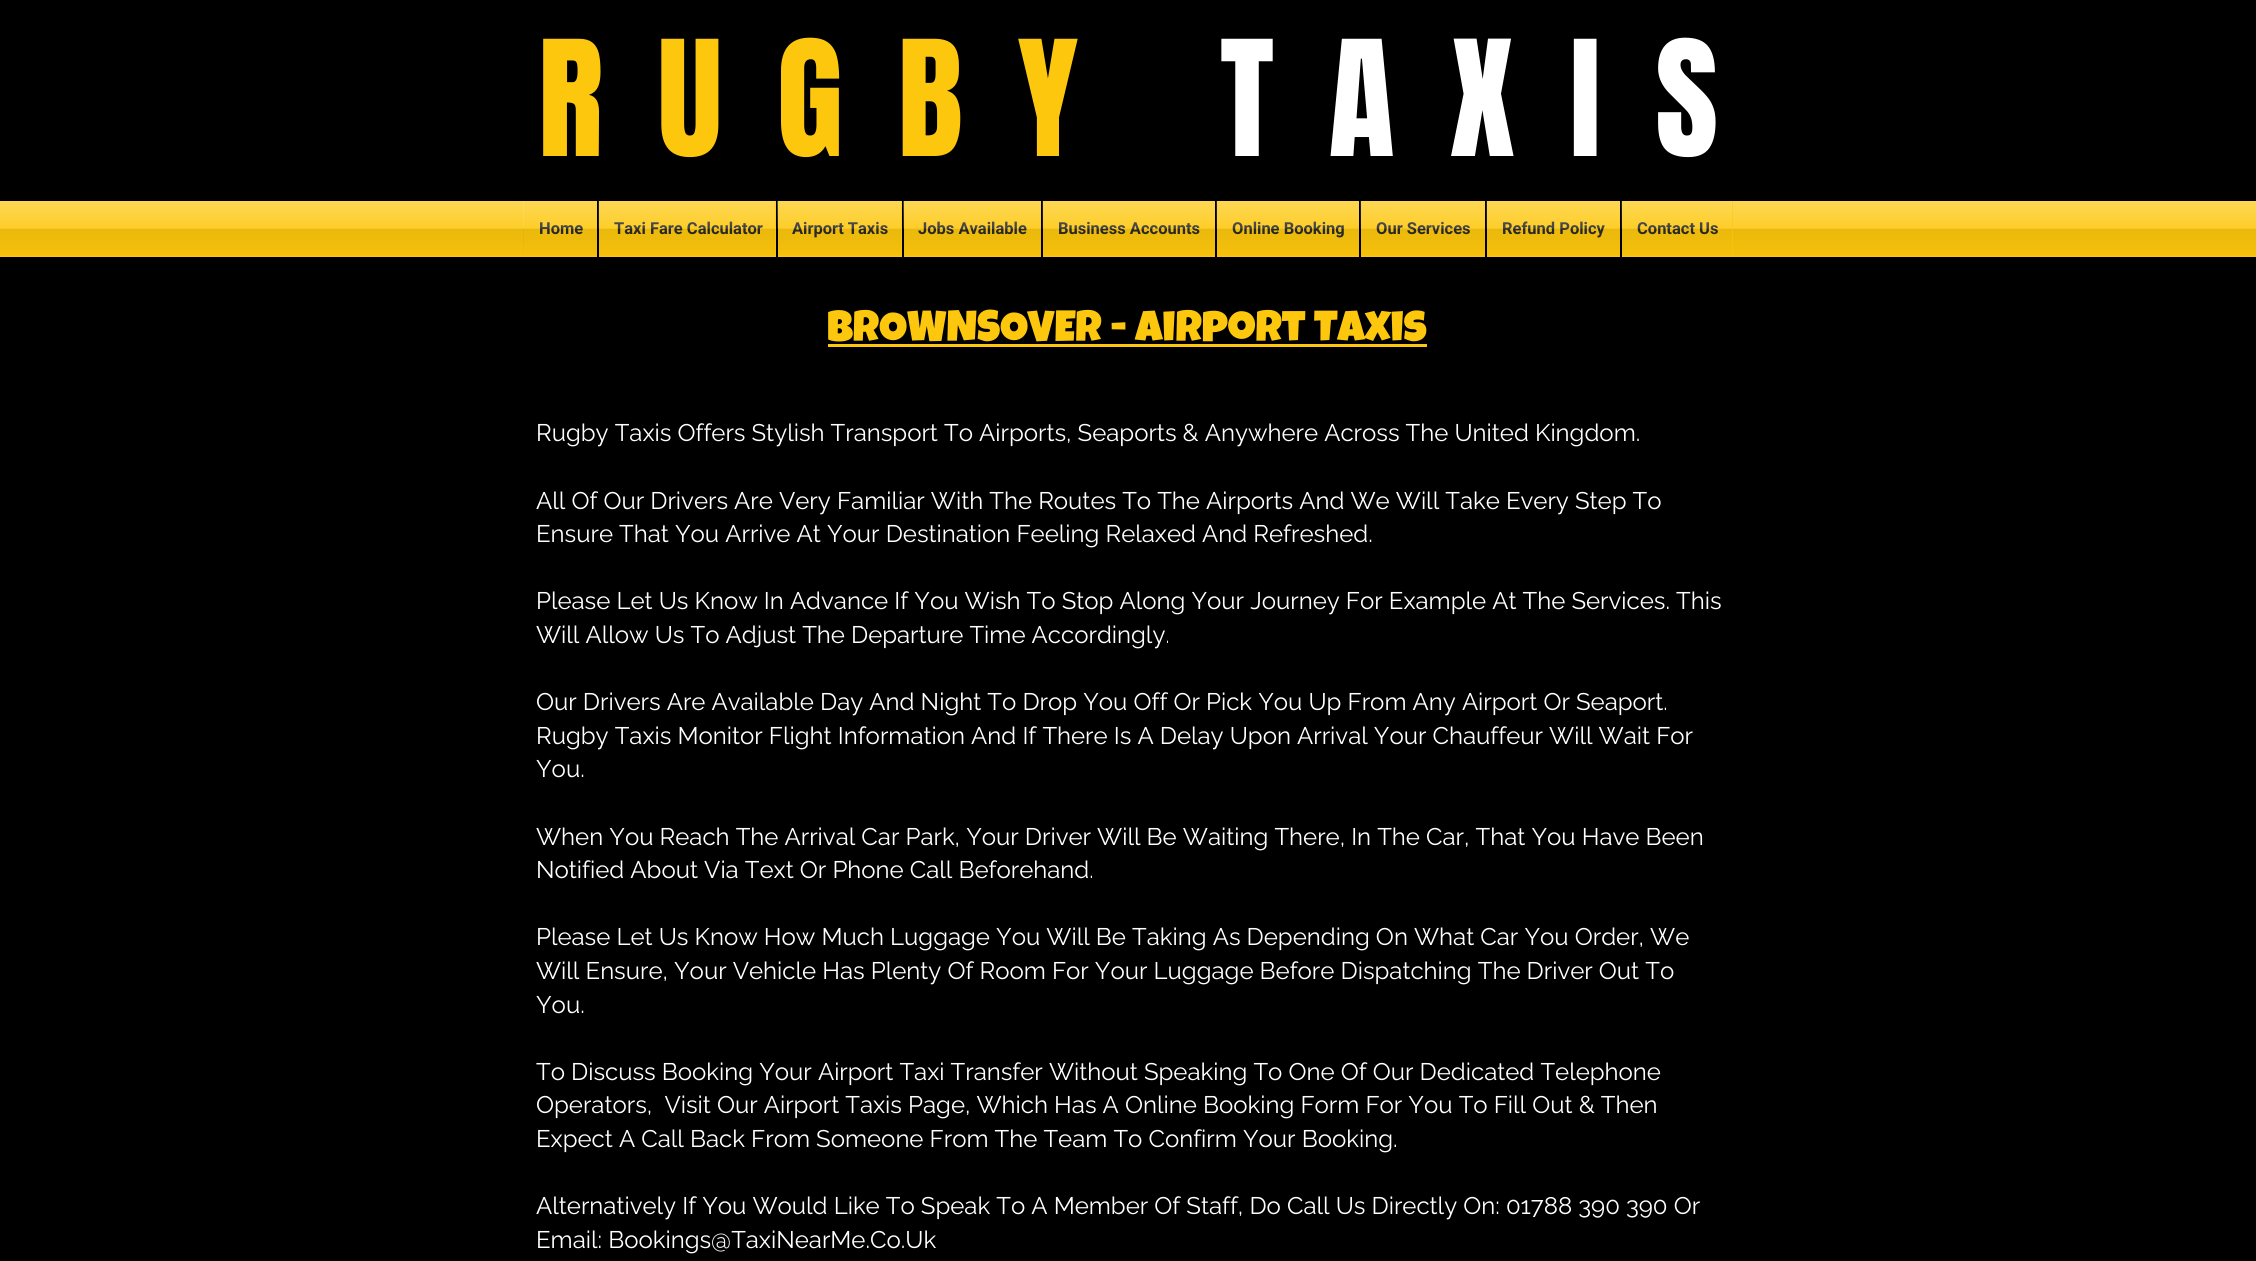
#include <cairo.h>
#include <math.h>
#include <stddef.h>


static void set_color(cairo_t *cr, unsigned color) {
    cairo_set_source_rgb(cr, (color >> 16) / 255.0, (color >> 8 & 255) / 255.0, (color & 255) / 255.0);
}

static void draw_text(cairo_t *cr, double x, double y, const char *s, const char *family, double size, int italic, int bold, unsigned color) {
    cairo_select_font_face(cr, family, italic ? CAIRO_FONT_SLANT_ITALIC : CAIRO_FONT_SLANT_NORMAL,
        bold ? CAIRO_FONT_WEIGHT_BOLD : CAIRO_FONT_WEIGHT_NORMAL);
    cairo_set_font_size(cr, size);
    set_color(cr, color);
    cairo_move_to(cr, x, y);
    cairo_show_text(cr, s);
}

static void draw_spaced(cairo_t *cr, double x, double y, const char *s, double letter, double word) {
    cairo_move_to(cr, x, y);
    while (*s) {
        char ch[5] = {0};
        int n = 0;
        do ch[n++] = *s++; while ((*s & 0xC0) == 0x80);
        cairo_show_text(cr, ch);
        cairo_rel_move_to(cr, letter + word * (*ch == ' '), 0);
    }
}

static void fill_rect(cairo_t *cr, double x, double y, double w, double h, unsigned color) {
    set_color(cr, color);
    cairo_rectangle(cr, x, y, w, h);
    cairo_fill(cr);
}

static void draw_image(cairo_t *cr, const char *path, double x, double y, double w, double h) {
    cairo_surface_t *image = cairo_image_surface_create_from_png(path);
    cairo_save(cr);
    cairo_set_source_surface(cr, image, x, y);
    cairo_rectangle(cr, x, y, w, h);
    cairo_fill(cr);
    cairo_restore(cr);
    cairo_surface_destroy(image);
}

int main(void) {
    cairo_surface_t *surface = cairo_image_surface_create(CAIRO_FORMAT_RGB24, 2256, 1261);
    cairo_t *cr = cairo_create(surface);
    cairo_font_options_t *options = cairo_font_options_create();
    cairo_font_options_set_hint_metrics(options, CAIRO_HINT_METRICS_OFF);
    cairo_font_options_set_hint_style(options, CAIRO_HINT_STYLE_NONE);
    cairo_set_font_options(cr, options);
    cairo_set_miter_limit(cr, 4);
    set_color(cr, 0x000000);
    cairo_paint(cr);
    cairo_select_font_face(cr, "Anton", CAIRO_FONT_SLANT_NORMAL, CAIRO_FONT_WEIGHT_NORMAL);
    cairo_set_font_size(cr, 136.5);
    set_color(cr, 0xFDC70D);
    draw_spaced(cr, 538, 156, "RUGBY", 54.5, 0);
    set_color(cr, 0xFFFFFF);
    draw_spaced(cr, 1220, 156, "TAXIS", 54.5, 0);
    fill_rect(cr, 0, 201, 2256, 56, 0xFDC70D);
    draw_image(cr, "assets/img1.png", 0, 201, 2256, 55);
    fill_rect(cr, 524, 201, 73, 55, 0xFDC70D);
    draw_text(cr, 539, 234, "Home", "Roboto", 16.5, 0, 1, 0x2A2A2A);
    draw_image(cr, "assets/img2.png", 523, 201, 74, 55);
    fill_rect(cr, 599, 201, 177, 55, 0xFDC70D);
    fill_rect(cr, 597, 201, 2, 56, 0x000000);
    draw_text(cr, 614, 234, "Taxi Fare Calculator", "Roboto", 16.5, 0, 1, 0x2A2A2A);
    draw_image(cr, "assets/img3.png", 598, 201, 178, 55);
    fill_rect(cr, 778, 201, 124, 55, 0xFDC70D);
    fill_rect(cr, 776, 201, 2, 56, 0x000000);
    draw_text(cr, 792, 234, "Airport Taxis", "Roboto", 16.5, 0, 1, 0x2A2A2A);
    draw_image(cr, "assets/img4.png", 777, 201, 125, 55);
    fill_rect(cr, 904, 201, 137, 55, 0xFDC70D);
    fill_rect(cr, 902, 201, 2, 56, 0x000000);
    draw_text(cr, 918, 234, "Jobs Available", "Roboto", 16.5, 0, 1, 0x2A2A2A);
    draw_image(cr, "assets/img5.png", 903, 201, 138, 55);
    fill_rect(cr, 1043, 201, 172, 55, 0xFDC70D);
    fill_rect(cr, 1041, 201, 2, 56, 0x000000);
    draw_text(cr, 1058, 234, "Business Accounts", "Roboto", 16.5, 0, 1, 0x2A2A2A);
    draw_image(cr, "assets/img6.png", 1042, 201, 173, 55);
    fill_rect(cr, 1217, 201, 142, 55, 0xFDC70D);
    fill_rect(cr, 1215, 201, 2, 56, 0x000000);
    draw_text(cr, 1232, 234, "Online Booking", "Roboto", 16.5, 0, 1, 0x2A2A2A);
    draw_image(cr, "assets/img7.png", 1216, 201, 143, 55);
    fill_rect(cr, 1361, 201, 124, 55, 0xFDC70D);
    fill_rect(cr, 1359, 201, 2, 56, 0x000000);
    draw_text(cr, 1376, 234, "Our Services", "Roboto", 16.5, 0, 1, 0x2A2A2A);
    draw_image(cr, "assets/img8.png", 1360, 201, 125, 55);
    fill_rect(cr, 1487, 201, 133, 55, 0xFDC70D);
    fill_rect(cr, 1485, 201, 2, 56, 0x000000);
    draw_text(cr, 1502, 234, "Refund Policy", "Roboto", 16.5, 0, 1, 0x2A2A2A);
    draw_image(cr, "assets/img9.png", 1486, 201, 134, 55);
    fill_rect(cr, 1622, 201, 111, 55, 0xFDC70D);
    fill_rect(cr, 1620, 201, 2, 56, 0x000000);
    draw_text(cr, 1637, 234, "Contact Us", "Roboto", 16.5, 0, 1, 0x2A2A2A);
    draw_image(cr, "assets/img10.png", 1621, 201, 112, 55);
    draw_text(cr, 827, 341, "BROWNSOVER - Airport Taxis", "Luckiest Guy", 43.5, 0, 0, 0xFDC70D);
    fill_rect(cr, 828, 344, 599, 3, 0xFDC70D);
    draw_text(cr, 536, 441, "Rugby Taxis Offers Stylish Transport To Airports, Seaports & Anywhere Across The United Kingdom.", "Raleway", 24, 0, 0, 0xFFFFFF);
    draw_text(cr, 536, 509, "All Of Our Drivers Are Very Familiar With The Routes To The Airports And We Will Take Every Step To", "Raleway", 24, 0, 0, 0xFFFFFF);
    draw_text(cr, 536, 542, "Ensure That You Arrive At Your Destination Feeling Relaxed And Refreshed.", "Raleway", 24, 0, 0, 0xFFFFFF);
    draw_text(cr, 536, 609, "Please Let Us Know In Advance If You Wish To Stop Along Your Journey For Example At The Services. This", "Raleway", 24, 0, 0, 0xFFFFFF);
    draw_text(cr, 536, 643, "Will Allow Us To Adjust The Departure Time Accordingly.", "Raleway", 24, 0, 0, 0xFFFFFF);
    draw_text(cr, 536, 710, "Our Drivers Are Available Day And Night To Drop You Off Or Pick You Up From Any Airport Or Seaport.", "Raleway", 24, 0, 0, 0xFFFFFF);
    draw_text(cr, 536, 744, "Rugby Taxis Monitor Flight Information And If There Is A Delay Upon Arrival Your Chauffeur Will Wait For", "Raleway", 24, 0, 0, 0xFFFFFF);
    draw_text(cr, 536, 777, "You.", "Raleway", 24, 0, 0, 0xFFFFFF);
    draw_text(cr, 536, 845, "When You Reach The Arrival Car Park, Your Driver Will Be Waiting There, In The Car, That You Have Been", "Raleway", 24, 0, 0, 0xFFFFFF);
    draw_text(cr, 536, 878, "Notified About Via Text Or Phone Call Beforehand.", "Raleway", 24, 0, 0, 0xFFFFFF);
    draw_text(cr, 536, 945, "Please Let Us Know How Much Luggage You Will Be Taking As Depending On What Car You Order, We", "Raleway", 24, 0, 0, 0xFFFFFF);
    draw_text(cr, 536, 979, "Will Ensure, Your Vehicle Has Plenty Of Room For Your Luggage Before Dispatching The Driver Out To", "Raleway", 24, 0, 0, 0xFFFFFF);
    draw_text(cr, 536, 1013, "You.", "Raleway", 24, 0, 0, 0xFFFFFF);
    draw_text(cr, 536, 1080, "To Discuss Booking Your Airport Taxi Transfer Without Speaking To One Of Our Dedicated Telephone", "Raleway", 24, 0, 0, 0xFFFFFF);
    draw_text(cr, 536, 1113, "Operators,  Visit Our Airport Taxis Page, Which Has A Online Booking Form For You To Fill Out & Then", "Raleway", 24, 0, 0, 0xFFFFFF);
    draw_text(cr, 536, 1147, "Expect A Call Back From Someone From The Team To Confirm Your Booking.", "Raleway", 24, 0, 0, 0xFFFFFF);
    draw_text(cr, 536, 1214, "Alternatively If You Would Like To Speak To A Member Of Staff, Do Call Us Directly On: 01788 390 390 Or", "Raleway", 24, 0, 0, 0xFFFFFF);
    draw_text(cr, 536, 1248, "Email: Bookings@TaxiNearMe.Co.Uk", "Raleway", 24, 0, 0, 0xFFFFFF);
    cairo_surface_write_to_png(surface, "output.png");
    cairo_font_options_destroy(options);
    cairo_destroy(cr);
    cairo_surface_destroy(surface);
    return 0;
}
